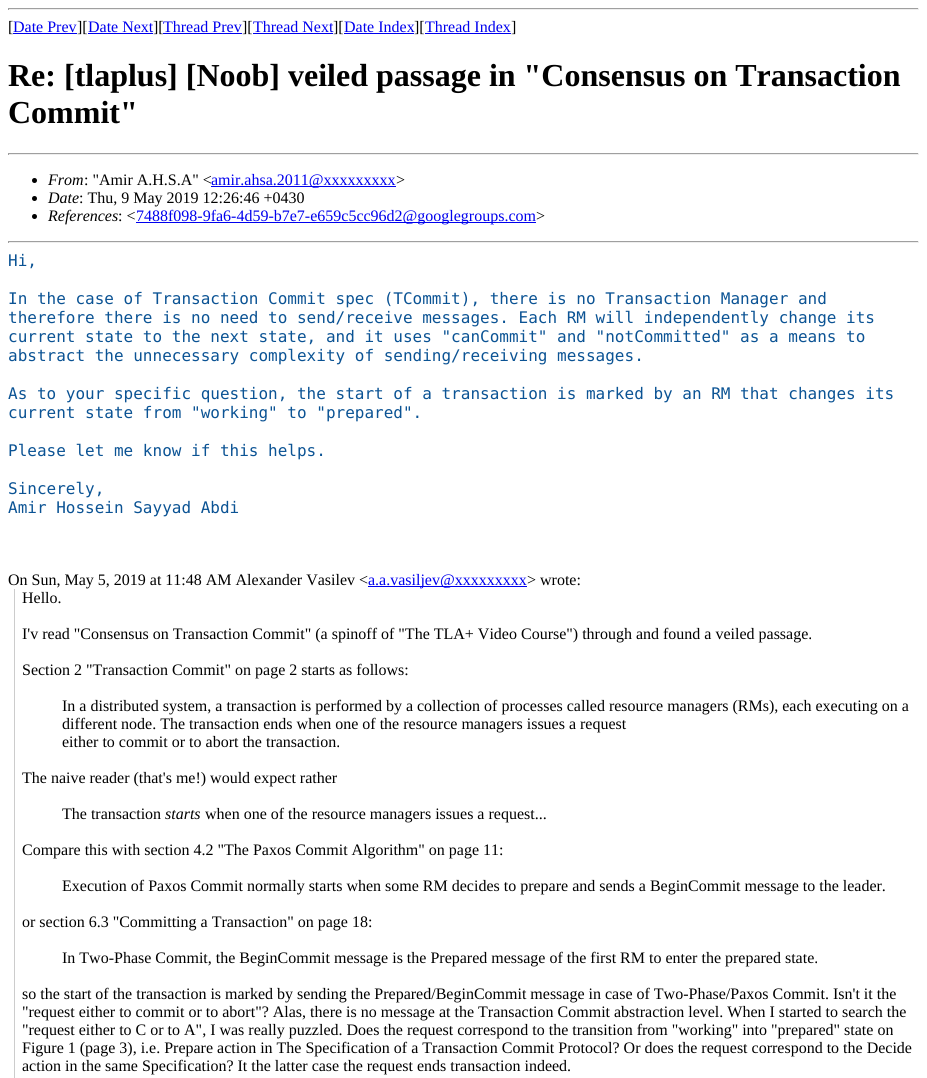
#include <cairo.h>
#include <math.h>
#include <stddef.h>


static void set_color(cairo_t *cr, unsigned color) {
    cairo_set_source_rgb(cr, (color >> 16) / 255.0, (color >> 8 & 255) / 255.0, (color & 255) / 255.0);
}

static void draw_text(cairo_t *cr, double x, double y, const char *s, const char *family, double size, int italic, int bold, unsigned color) {
    cairo_select_font_face(cr, family, italic ? CAIRO_FONT_SLANT_ITALIC : CAIRO_FONT_SLANT_NORMAL,
        bold ? CAIRO_FONT_WEIGHT_BOLD : CAIRO_FONT_WEIGHT_NORMAL);
    cairo_set_font_size(cr, size);
    set_color(cr, color);
    cairo_move_to(cr, x, y);
    cairo_show_text(cr, s);
}

static void fill_rect(cairo_t *cr, double x, double y, double w, double h, unsigned color) {
    set_color(cr, color);
    cairo_rectangle(cr, x, y, w, h);
    cairo_fill(cr);
}

int main(void) {
    cairo_surface_t *surface = cairo_image_surface_create(CAIRO_FORMAT_RGB24, 927, 1078);
    cairo_t *cr = cairo_create(surface);
    cairo_font_options_t *options = cairo_font_options_create();
    cairo_font_options_set_hint_metrics(options, CAIRO_HINT_METRICS_OFF);
    cairo_font_options_set_hint_style(options, CAIRO_HINT_STYLE_NONE);
    cairo_set_font_options(cr, options);
    cairo_set_miter_limit(cr, 4);
    set_color(cr, 0xFFFFFF);
    cairo_paint(cr);
    fill_rect(cr, 8, 8, 911, 1, 0x9F9F9F);
    fill_rect(cr, 918, 8, 1, 2, 0xEEEEEE);
    fill_rect(cr, 8, 9, 911, 1, 0xEEEEEE);
    fill_rect(cr, 8, 8, 1, 2, 0x9F9F9F);
    draw_text(cr, 8, 32, "[", "Liberation Serif", 16, 0, 0, 0x000000);
    draw_text(cr, 13, 32, "Date Prev", "Liberation Serif", 16, 0, 0, 0x0000EE);
    fill_rect(cr, 13, 33, 64, 1, 0x0000EE);
    draw_text(cr, 77, 32, "][", "Liberation Serif", 16, 0, 0, 0x000000);
    draw_text(cr, 88, 32, "Date Next", "Liberation Serif", 16, 0, 0, 0x0000EE);
    fill_rect(cr, 88, 33, 65, 1, 0x0000EE);
    draw_text(cr, 153, 32, "][", "Liberation Serif", 16, 0, 0, 0x000000);
    draw_text(cr, 163, 32, "Thread Prev", "Liberation Serif", 16, 0, 0, 0x0000EE);
    fill_rect(cr, 163, 33, 79, 1, 0x0000EE);
    draw_text(cr, 242, 32, "][", "Liberation Serif", 16, 0, 0, 0x000000);
    draw_text(cr, 253, 32, "Thread Next", "Liberation Serif", 16, 0, 0, 0x0000EE);
    fill_rect(cr, 253, 33, 80, 1, 0x0000EE);
    draw_text(cr, 333, 32, "][", "Liberation Serif", 16, 0, 0, 0x000000);
    draw_text(cr, 344, 32, "Date Index", "Liberation Serif", 16, 0, 0, 0x0000EE);
    fill_rect(cr, 344, 33, 70, 1, 0x0000EE);
    draw_text(cr, 414, 32, "][", "Liberation Serif", 16, 0, 0, 0x000000);
    draw_text(cr, 425, 32, "Thread Index", "Liberation Serif", 16, 0, 0, 0x0000EE);
    fill_rect(cr, 425, 33, 86, 1, 0x0000EE);
    draw_text(cr, 511, 32, "]", "Liberation Serif", 16, 0, 0, 0x000000);
    draw_text(cr, 8, 86, "Re: [tlaplus] [Noob] veiled passage in \"Consensus on Transaction", "Liberation Serif", 32, 0, 1, 0x000000);
    draw_text(cr, 8, 123, "Commit\"", "Liberation Serif", 32, 0, 1, 0x000000);
    fill_rect(cr, 8, 153, 911, 1, 0x9F9F9F);
    fill_rect(cr, 918, 153, 1, 2, 0xEEEEEE);
    fill_rect(cr, 8, 154, 911, 1, 0xEEEEEE);
    fill_rect(cr, 8, 153, 1, 2, 0x9F9F9F);
    set_color(cr, 0x000000);
    cairo_new_path(cr);
    cairo_arc(cr, 34.5, 180.5, 2.5, 0, 2 * M_PI);
    cairo_fill(cr);
    draw_text(cr, 48, 185, "From", "Liberation Serif", 16, 1, 0, 0x000000);
    draw_text(cr, 84, 185, ": \"Amir A.H.S.A\" <", "Liberation Serif", 16, 0, 0, 0x000000);
    fill_rect(cr, 211, 186, 185, 1, 0x0000EE);
    draw_text(cr, 211, 185, "amir.ahsa.2011@xxxxxxxxx", "Liberation Serif", 16, 0, 0, 0x0000EE);
    draw_text(cr, 396, 185, ">", "Liberation Serif", 16, 0, 0, 0x000000);
    cairo_new_path(cr);
    cairo_arc(cr, 34.5, 198.5, 2.5, 0, 2 * M_PI);
    cairo_fill(cr);
    draw_text(cr, 48, 203, "Date", "Liberation Serif", 16, 1, 0, 0x000000);
    draw_text(cr, 79, 203, ": Thu, 9 May 2019 12:26:46 +0430", "Liberation Serif", 16, 0, 0, 0x000000);
    cairo_new_path(cr);
    cairo_arc(cr, 34.5, 216.5, 2.5, 0, 2 * M_PI);
    cairo_fill(cr);
    draw_text(cr, 48, 221, "References", "Liberation Serif", 16, 1, 0, 0x000000);
    draw_text(cr, 118, 221, ": <", "Liberation Serif", 16, 0, 0, 0x000000);
    fill_rect(cr, 136, 222, 400, 1, 0x0000EE);
    draw_text(cr, 136, 221, "7488f098-9fa6-4d59-b7e7-e659c5cc96d2@googlegroups.com", "Liberation Serif", 16, 0, 0, 0x0000EE);
    draw_text(cr, 536, 221, ">", "Liberation Serif", 16, 0, 0, 0x000000);
    fill_rect(cr, 8, 241, 911, 1, 0x9F9F9F);
    fill_rect(cr, 918, 241, 1, 2, 0xEEEEEE);
    fill_rect(cr, 8, 242, 911, 1, 0xEEEEEE);
    fill_rect(cr, 8, 241, 1, 2, 0x9F9F9F);
    draw_text(cr, 8, 266, "Hi,", "DejaVu Sans Mono", 16, 0, 0, 0x0B5394);
    draw_text(cr, 8, 304, "In the case of Transaction Commit spec (TCommit), there is no Transaction Manager and", "DejaVu Sans Mono", 16, 0, 0, 0x0B5394);
    draw_text(cr, 8, 323, "therefore there is no need to send/receive messages. Each RM will independently change its", "DejaVu Sans Mono", 16, 0, 0, 0x0B5394);
    draw_text(cr, 8, 342, "current state to the next state, and it uses \"canCommit\" and \"notCommitted\" as a means to", "DejaVu Sans Mono", 16, 0, 0, 0x0B5394);
    draw_text(cr, 8, 361, "abstract the unnecessary complexity of sending/receiving messages.", "DejaVu Sans Mono", 16, 0, 0, 0x0B5394);
    draw_text(cr, 8, 399, "As to your specific question, the start of a transaction is marked by an RM that changes its", "DejaVu Sans Mono", 16, 0, 0, 0x0B5394);
    draw_text(cr, 8, 418, "current state from \"working\" to \"prepared\".", "DejaVu Sans Mono", 16, 0, 0, 0x0B5394);
    draw_text(cr, 8, 456, "Please let me know if this helps.", "DejaVu Sans Mono", 16, 0, 0, 0x0B5394);
    draw_text(cr, 8, 494, "Sincerely,", "DejaVu Sans Mono", 16, 0, 0, 0x0B5394);
    draw_text(cr, 8, 513, "Amir Hossein Sayyad Abdi", "DejaVu Sans Mono", 16, 0, 0, 0x0B5394);
    draw_text(cr, 8, 585, "On Sun, May 5, 2019 at 11:48 AM Alexander Vasilev <", "Liberation Serif", 16, 0, 0, 0x000000);
    fill_rect(cr, 368, 586, 159, 1, 0x0000EE);
    draw_text(cr, 368, 585, "a.a.vasiljev@xxxxxxxxx", "Liberation Serif", 16, 0, 0, 0x0000EE);
    draw_text(cr, 527, 585, "> wrote:", "Liberation Serif", 16, 0, 0, 0x000000);
    fill_rect(cr, 14, 589, 1, 489, 0xCCCCCC);
    draw_text(cr, 22, 603, "Hello.", "Liberation Serif", 16, 0, 0, 0x000000);
    draw_text(cr, 22, 639, "I'v read \"Consensus on Transaction Commit\" (a spinoff of \"The TLA+ Video Course\") through and found a veiled passage.", "Liberation Serif", 16, 0, 0, 0x000000);
    draw_text(cr, 22, 675, "Section 2 \"Transaction Commit\" on page 2 starts as follows:", "Liberation Serif", 16, 0, 0, 0x000000);
    draw_text(cr, 62, 711, "In a distributed system, a transaction is performed by a collection of processes called resource managers (RMs), each executing on a", "Liberation Serif", 16, 0, 0, 0x000000);
    draw_text(cr, 62, 729, "different node. The transaction ends when one of the resource managers issues a request", "Liberation Serif", 16, 0, 0, 0x000000);
    draw_text(cr, 62, 747, "either to commit or to abort the transaction.", "Liberation Serif", 16, 0, 0, 0x000000);
    draw_text(cr, 22, 783, "The naive reader (that's me!) would expect rather", "Liberation Serif", 16, 0, 0, 0x000000);
    draw_text(cr, 62, 819, "The transaction", "Liberation Serif", 16, 0, 0, 0x000000);
    draw_text(cr, 165, 819, "starts", "Liberation Serif", 16, 1, 0, 0x000000);
    draw_text(cr, 205, 819, "when one of the resource managers issues a request...", "Liberation Serif", 16, 0, 0, 0x000000);
    draw_text(cr, 22, 855, "Compare this with section 4.2 \"The Paxos Commit Algorithm\" on page 11:", "Liberation Serif", 16, 0, 0, 0x000000);
    draw_text(cr, 62, 891, "Execution of Paxos Commit normally starts when some RM decides to prepare and sends a BeginCommit message to the leader.", "Liberation Serif", 16, 0, 0, 0x000000);
    draw_text(cr, 22, 927, "or section 6.3 \"Committing a Transaction\" on page 18:", "Liberation Serif", 16, 0, 0, 0x000000);
    draw_text(cr, 62, 963, "In Two-Phase Commit, the BeginCommit message is the Prepared message of the first RM to enter the prepared state.", "Liberation Serif", 16, 0, 0, 0x000000);
    draw_text(cr, 22, 999, "so the start of the transaction is marked by sending the Prepared/BeginCommit message in case of Two-Phase/Paxos Commit. Isn't it the", "Liberation Serif", 16, 0, 0, 0x000000);
    draw_text(cr, 22, 1017, "\"request either to commit or to abort\"? Alas, there is no message at the Transaction Commit abstraction level. When I started to search the", "Liberation Serif", 16, 0, 0, 0x000000);
    draw_text(cr, 22, 1035, "\"request either to C or to A\", I was really puzzled. Does the request correspond to the transition from \"working\" into \"prepared\" state on", "Liberation Serif", 16, 0, 0, 0x000000);
    draw_text(cr, 22, 1053, "Figure 1 (page 3), i.e. Prepare action in The Specification of a Transaction Commit Protocol? Or does the request correspond to the Decide", "Liberation Serif", 16, 0, 0, 0x000000);
    draw_text(cr, 22, 1071, "action in the same Specification? It the latter case the request ends transaction indeed.", "Liberation Serif", 16, 0, 0, 0x000000);
    cairo_surface_write_to_png(surface, "output.png");
    cairo_font_options_destroy(options);
    cairo_destroy(cr);
    cairo_surface_destroy(surface);
    return 0;
}
